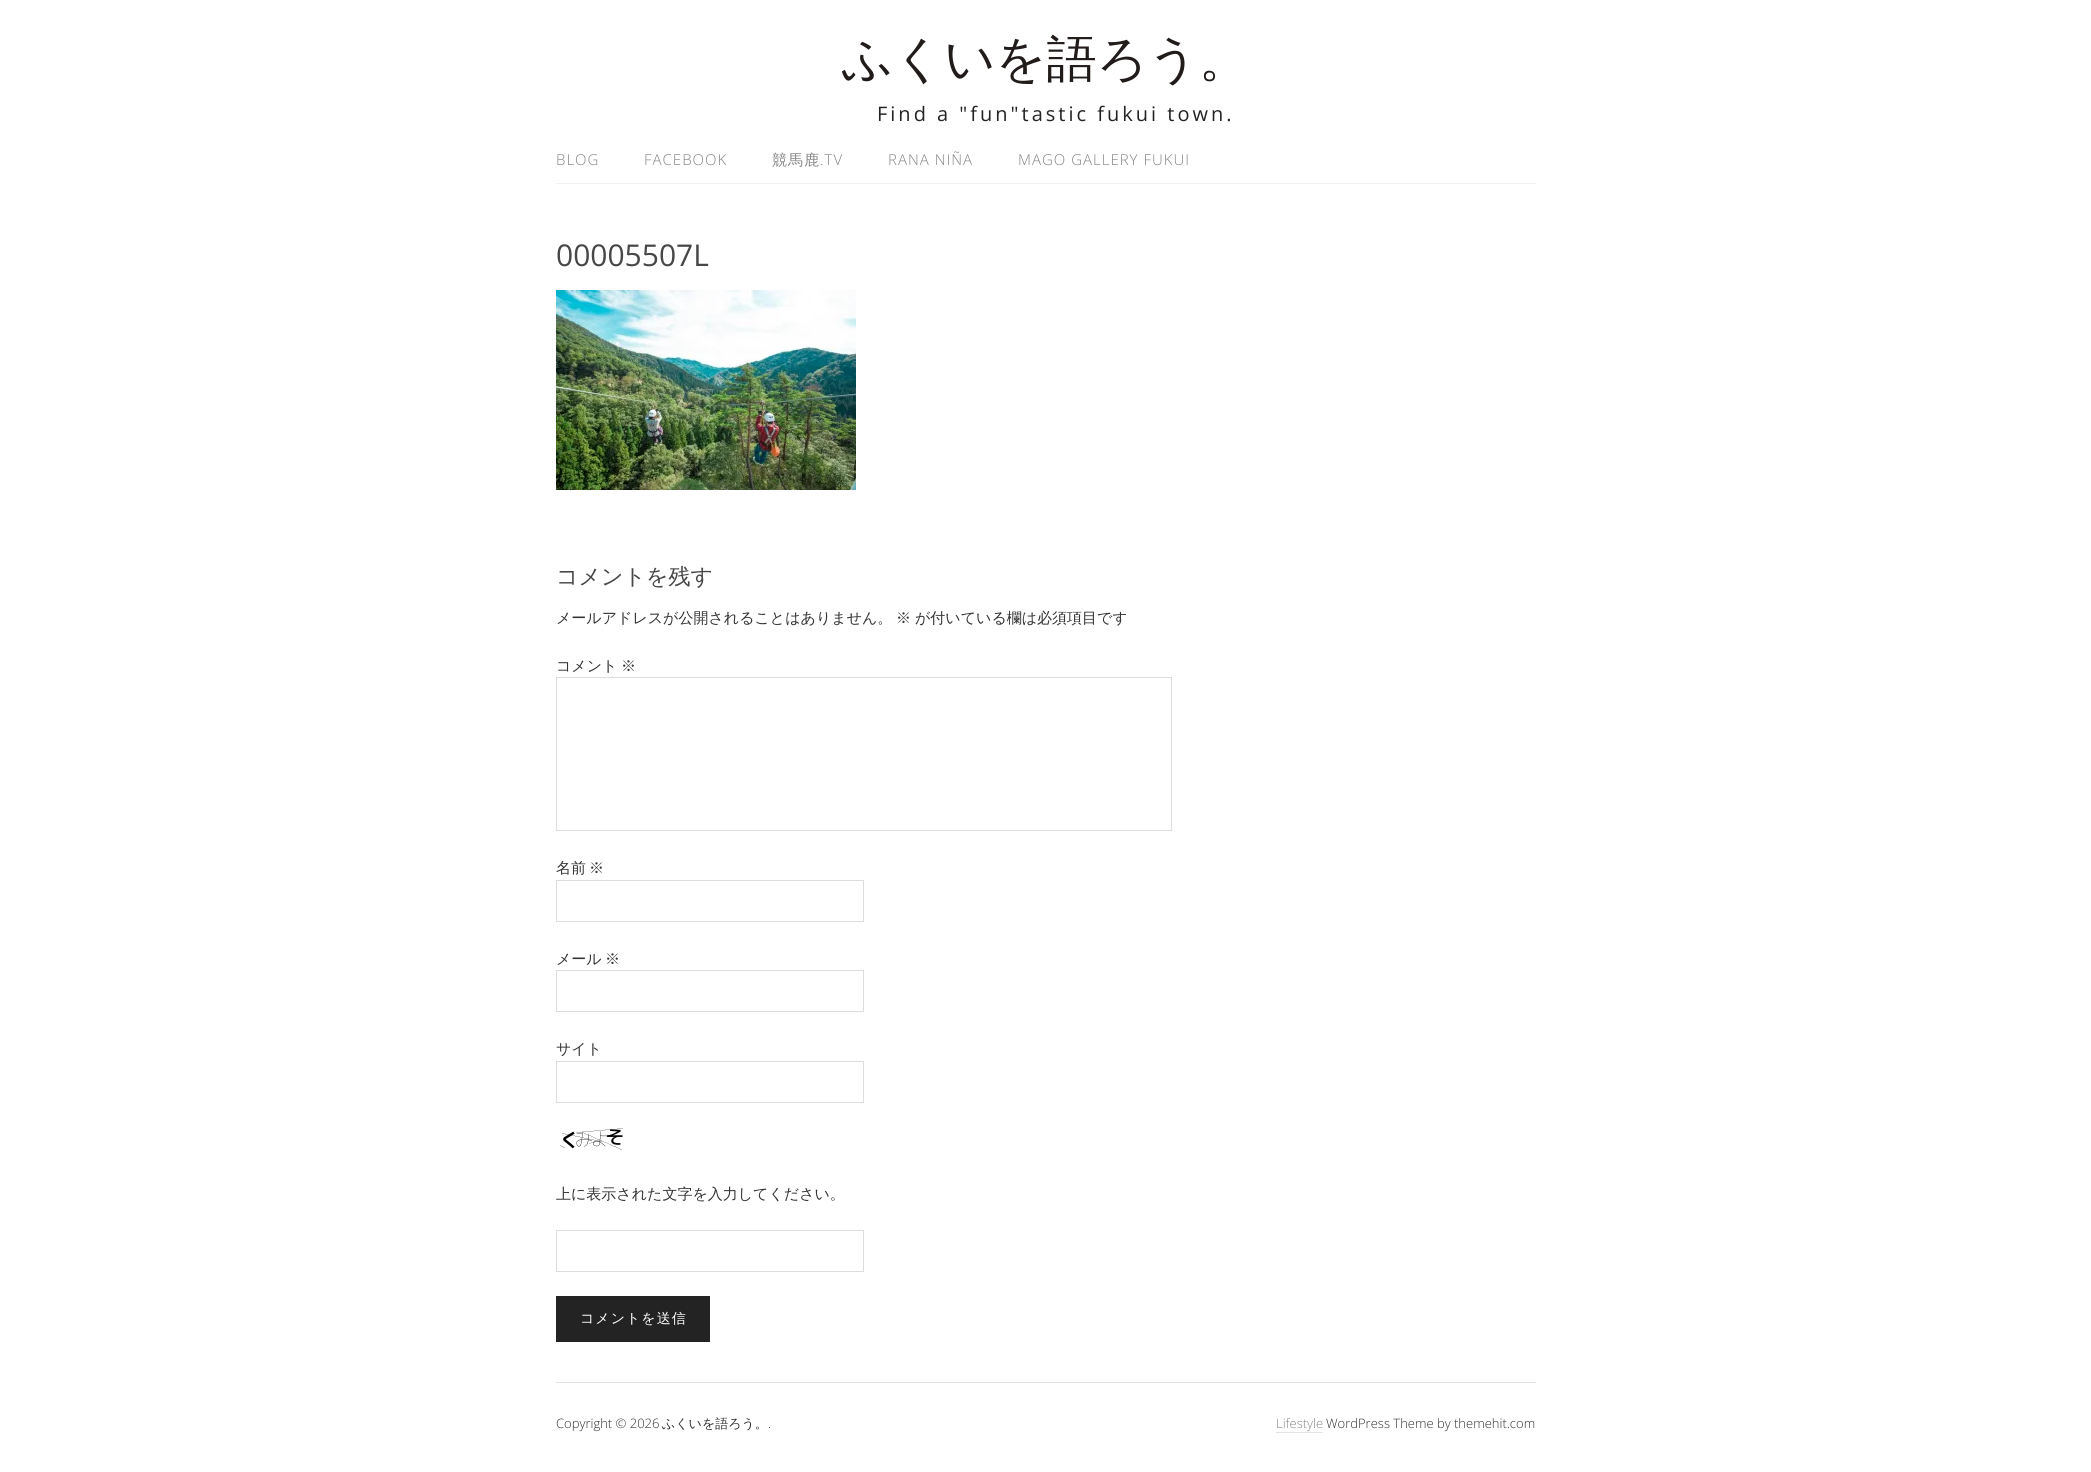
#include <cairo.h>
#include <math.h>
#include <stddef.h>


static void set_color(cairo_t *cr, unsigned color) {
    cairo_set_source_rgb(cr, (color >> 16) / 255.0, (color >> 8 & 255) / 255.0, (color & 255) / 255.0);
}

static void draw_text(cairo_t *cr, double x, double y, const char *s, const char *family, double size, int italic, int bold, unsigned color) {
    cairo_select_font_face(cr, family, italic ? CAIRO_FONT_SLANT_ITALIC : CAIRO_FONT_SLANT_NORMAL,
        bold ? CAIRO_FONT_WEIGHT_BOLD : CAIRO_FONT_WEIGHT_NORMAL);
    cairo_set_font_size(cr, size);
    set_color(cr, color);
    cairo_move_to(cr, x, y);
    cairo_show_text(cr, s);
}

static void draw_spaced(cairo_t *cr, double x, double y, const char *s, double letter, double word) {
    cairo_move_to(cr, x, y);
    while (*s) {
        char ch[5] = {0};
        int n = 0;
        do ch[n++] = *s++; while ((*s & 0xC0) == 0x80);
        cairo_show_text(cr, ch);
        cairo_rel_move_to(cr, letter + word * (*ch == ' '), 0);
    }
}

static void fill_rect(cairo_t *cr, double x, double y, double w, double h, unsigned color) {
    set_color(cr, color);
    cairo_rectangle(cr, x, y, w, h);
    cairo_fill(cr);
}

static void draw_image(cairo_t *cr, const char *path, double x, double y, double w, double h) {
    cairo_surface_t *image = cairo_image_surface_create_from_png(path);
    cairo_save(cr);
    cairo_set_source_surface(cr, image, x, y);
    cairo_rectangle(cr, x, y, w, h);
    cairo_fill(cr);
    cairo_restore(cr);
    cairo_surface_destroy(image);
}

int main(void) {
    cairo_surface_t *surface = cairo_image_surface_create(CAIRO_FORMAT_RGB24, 2091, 1472);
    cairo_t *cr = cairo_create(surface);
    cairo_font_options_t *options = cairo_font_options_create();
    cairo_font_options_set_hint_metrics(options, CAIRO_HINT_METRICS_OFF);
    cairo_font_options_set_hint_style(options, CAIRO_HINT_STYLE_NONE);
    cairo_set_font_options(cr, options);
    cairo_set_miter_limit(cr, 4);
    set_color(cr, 0xFFFFFF);
    cairo_paint(cr);
    draw_text(cr, 842, 76, "ふくいを語ろう。", "WenQuanYi Zen Hei Medium", 50, 0, 0, 0x211B1A);
    cairo_select_font_face(cr, "Open Sans", CAIRO_FONT_SLANT_NORMAL, CAIRO_FONT_WEIGHT_NORMAL);
    cairo_set_font_size(cr, 20);
    set_color(cr, 0x232323);
    draw_spaced(cr, 877, 121, "Find a \"fun\"tastic fukui town.", 3, 0);
    fill_rect(cr, 556, 183, 980, 1, 0xF2F2F2);
    cairo_select_font_face(cr, "Open Sans Light", CAIRO_FONT_SLANT_NORMAL, CAIRO_FONT_WEIGHT_NORMAL);
    cairo_set_font_size(cr, 15);
    set_color(cr, 0x858585);
    draw_spaced(cr, 556, 165, "BLOG", 1, 0);
    draw_spaced(cr, 644, 165, "FACEBOOK", 1, 0);
    cairo_select_font_face(cr, "WenQuanYi Zen Hei Medium", CAIRO_FONT_SLANT_NORMAL, CAIRO_FONT_WEIGHT_NORMAL);
    draw_spaced(cr, 772, 165, "競馬鹿", 1, 0);
    cairo_select_font_face(cr, "Open Sans Light", CAIRO_FONT_SLANT_NORMAL, CAIRO_FONT_WEIGHT_NORMAL);
    draw_spaced(cr, 820, 165, ".TV", 1, 0);
    draw_spaced(cr, 888, 165, "RANA NIÑA", 1, 0);
    draw_spaced(cr, 1018, 165, "MAGO GALLERY FUKUI", 1, 0);
    draw_text(cr, 556, 266, "00005507L", "Open Sans", 30, 0, 0, 0x474747);
    draw_image(cr, "assets/img1.png", 556, 290, 300, 200);
    draw_text(cr, 556, 584, "コメントを残す", "WenQuanYi Zen Hei Medium", 22, 0, 0, 0x474747);
    draw_text(cr, 556, 623, "メールアドレスが公開されることはありません。", "WenQuanYi Zen Hei Medium", 15, 0, 0, 0x333333);
    draw_text(cr, 896, 623, "※", "WenQuanYi Zen Hei Medium", 15, 0, 0, 0x333333);
    draw_text(cr, 915, 623, "が付いている欄は必須項目です", "WenQuanYi Zen Hei Medium", 15, 0, 0, 0x333333);
    draw_text(cr, 556, 671, "コメント", "WenQuanYi Zen Hei Medium", 15, 0, 0, 0x333333);
    draw_text(cr, 621, 671, "※", "WenQuanYi Zen Hei Medium", 15, 0, 0, 0x333333);
    cairo_rectangle(cr, 556.5, 677.5, 615, 153);
    set_color(cr, 0xDDDDDD);
    cairo_set_line_width(cr, 1);
    cairo_stroke(cr);
    draw_text(cr, 556, 873, "名前", "WenQuanYi Zen Hei Medium", 15, 0, 0, 0x333333);
    draw_text(cr, 589, 873, "※", "WenQuanYi Zen Hei Medium", 15, 0, 0, 0x333333);
    cairo_rectangle(cr, 556.5, 880.5, 307, 41);
    set_color(cr, 0xDDDDDD);
    cairo_stroke(cr);
    draw_text(cr, 556, 964, "メール", "WenQuanYi Zen Hei Medium", 15, 0, 0, 0x333333);
    draw_text(cr, 605, 964, "※", "WenQuanYi Zen Hei Medium", 15, 0, 0, 0x333333);
    cairo_rectangle(cr, 556.5, 970.5, 307, 41);
    set_color(cr, 0xDDDDDD);
    cairo_stroke(cr);
    draw_text(cr, 556, 1054, "サイト", "WenQuanYi Zen Hei Medium", 15, 0, 0, 0x333333);
    cairo_rectangle(cr, 556.5, 1061.5, 307, 41);
    set_color(cr, 0xDDDDDD);
    cairo_stroke(cr);
    draw_image(cr, "assets/img2.png", 560, 1128, 63, 22);
    draw_text(cr, 556, 1199, "上に表示された文字を入力してください。", "WenQuanYi Zen Hei Medium", 15, 0, 0, 0x333333);
    cairo_rectangle(cr, 556.5, 1230.5, 307, 41);
    set_color(cr, 0xDDDDDD);
    cairo_stroke(cr);
    fill_rect(cr, 556, 1296, 154, 46, 0x232323);
    cairo_set_font_size(cr, 14);
    set_color(cr, 0xFFFFFF);
    draw_spaced(cr, 580, 1323, "コメントを送信", 1, 0);
    fill_rect(cr, 556, 1382, 980, 1, 0xE5E5E5);
    draw_text(cr, 556, 1428, "Copyright © 2026", "Open Sans Light", 13, 0, 0, 0x333333);
    draw_text(cr, 662, 1428, "ふくいを語ろう。", "WenQuanYi Zen Hei Medium", 13, 0, 0, 0x333333);
    draw_text(cr, 768, 1428, ".", "Open Sans Light", 13, 0, 0, 0x333333);
    draw_text(cr, 1276, 1428, "Lifestyle", "Open Sans Light", 13, 0, 0, 0x858585);
    fill_rect(cr, 1276, 1432, 47, 1, 0xE3E3E3);
    draw_text(cr, 1326, 1428, "WordPress Theme by themehit.com", "Open Sans Light", 13, 0, 0, 0x333333);
    cairo_surface_write_to_png(surface, "output.png");
    cairo_font_options_destroy(options);
    cairo_destroy(cr);
    cairo_surface_destroy(surface);
    return 0;
}
